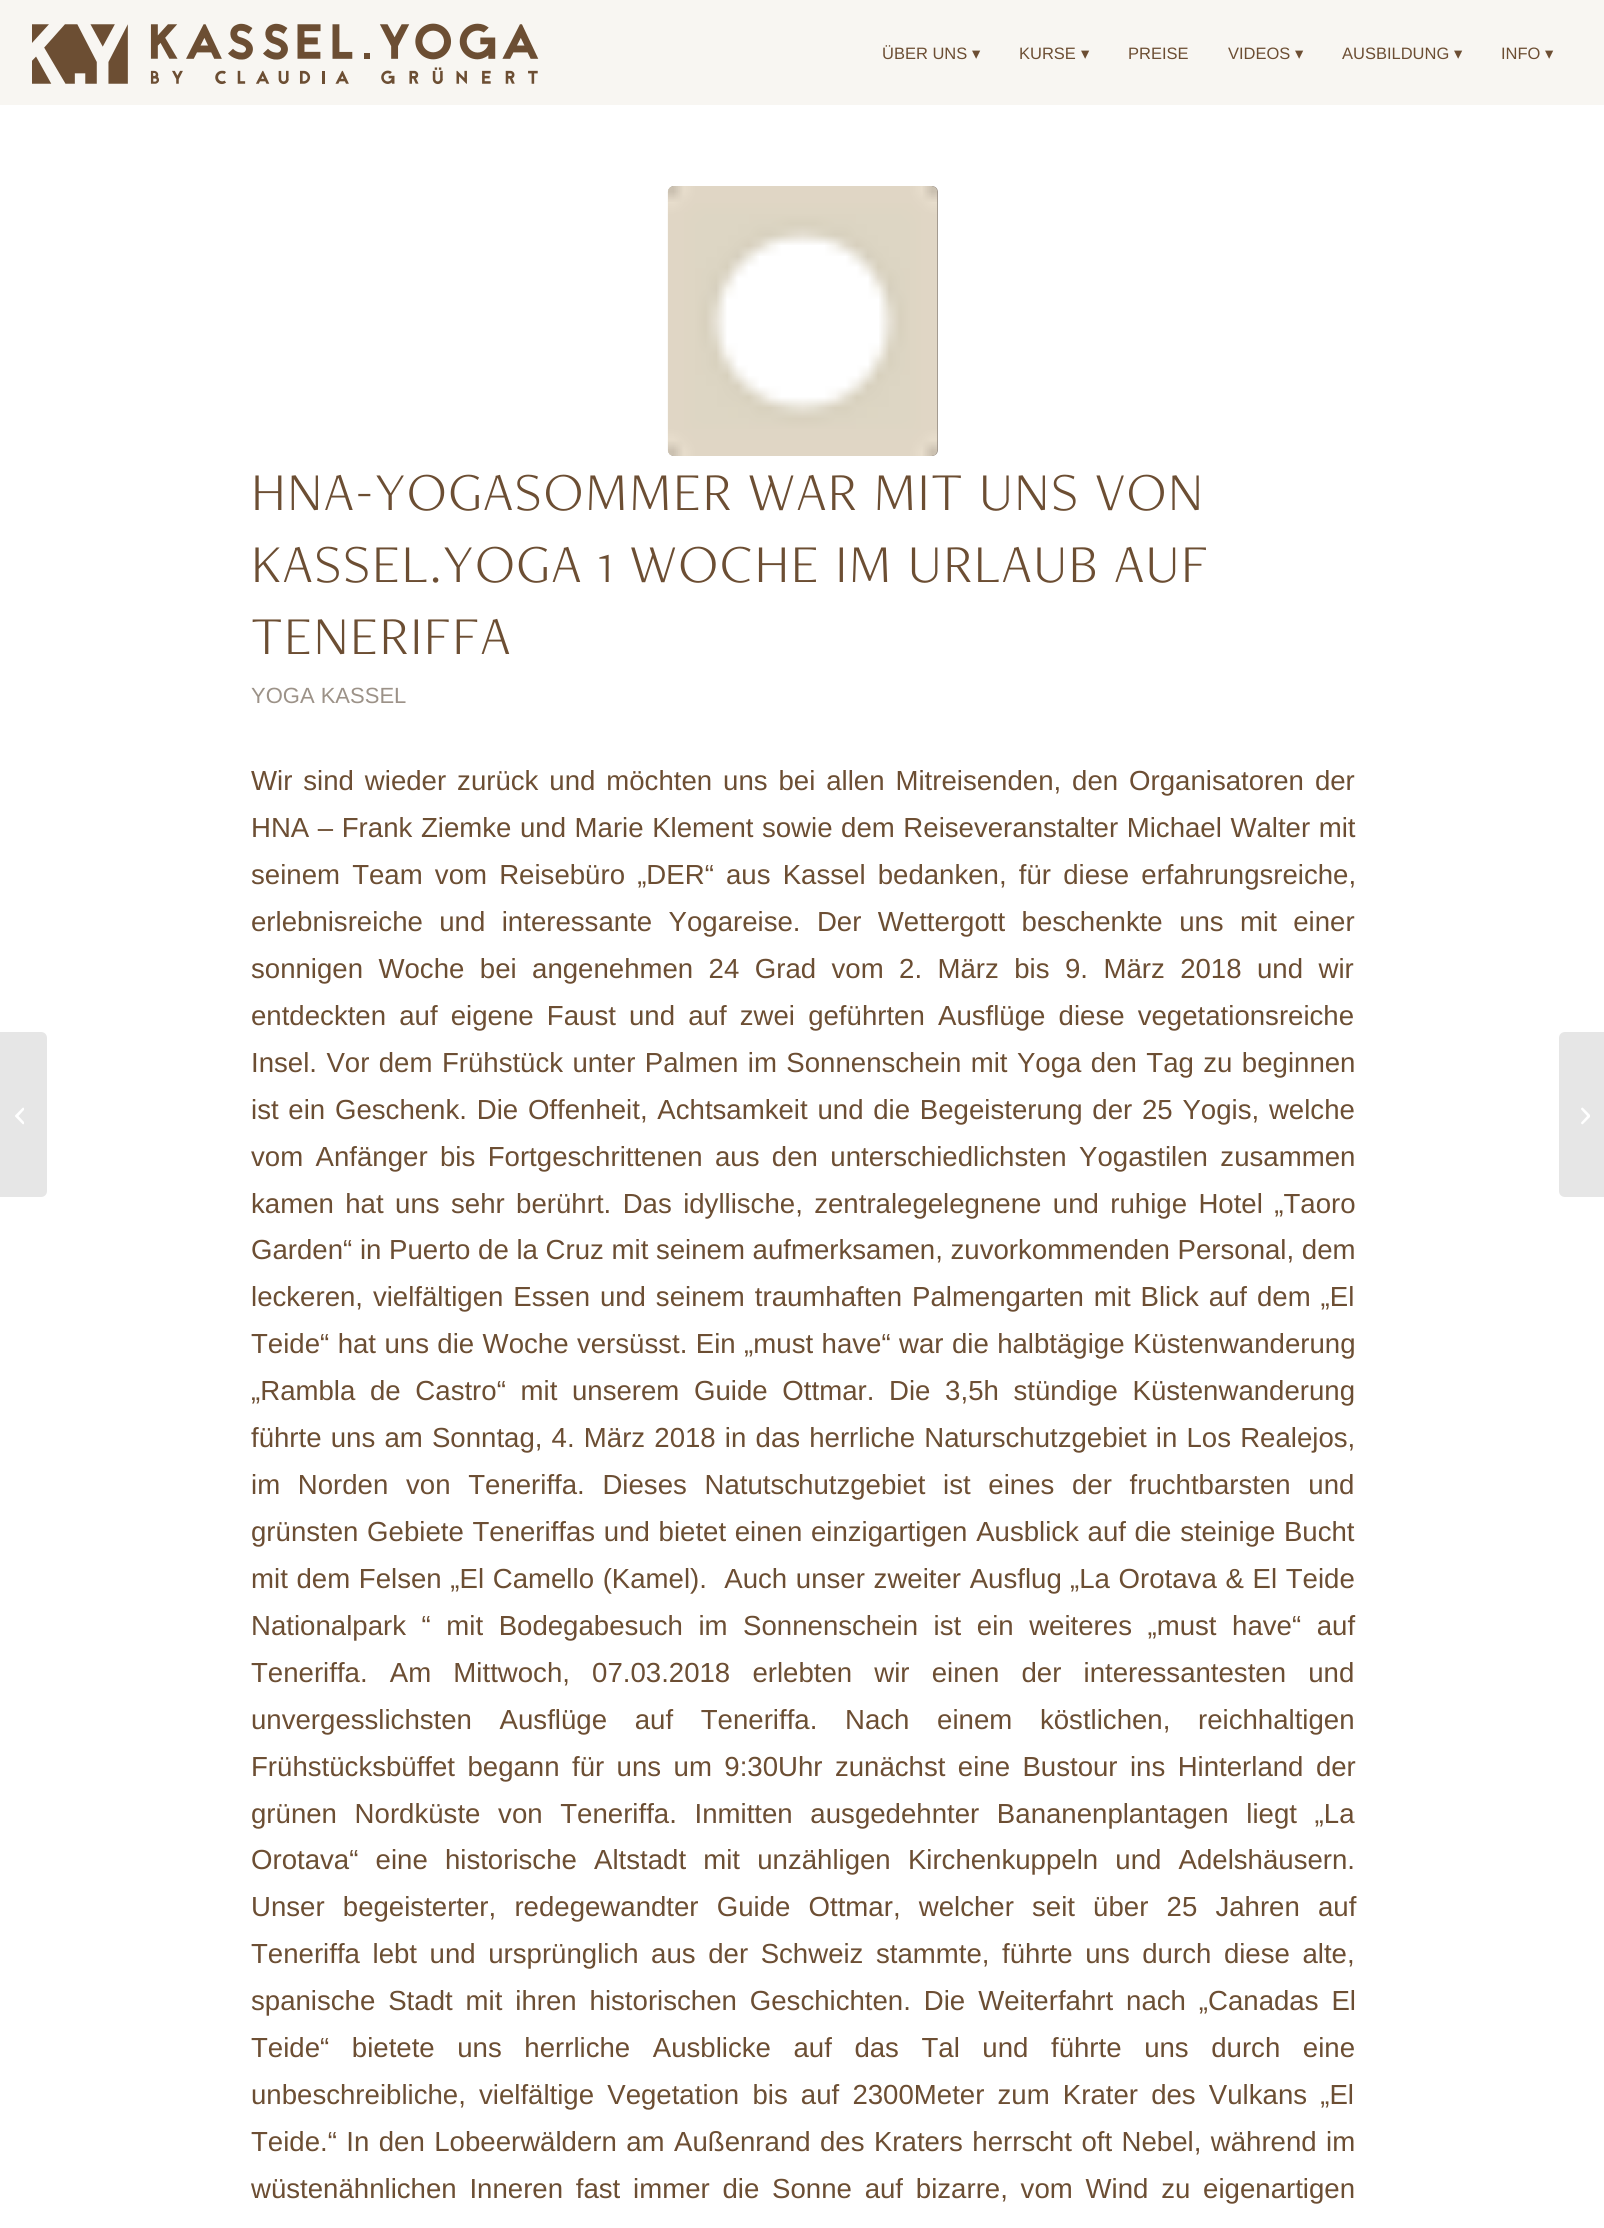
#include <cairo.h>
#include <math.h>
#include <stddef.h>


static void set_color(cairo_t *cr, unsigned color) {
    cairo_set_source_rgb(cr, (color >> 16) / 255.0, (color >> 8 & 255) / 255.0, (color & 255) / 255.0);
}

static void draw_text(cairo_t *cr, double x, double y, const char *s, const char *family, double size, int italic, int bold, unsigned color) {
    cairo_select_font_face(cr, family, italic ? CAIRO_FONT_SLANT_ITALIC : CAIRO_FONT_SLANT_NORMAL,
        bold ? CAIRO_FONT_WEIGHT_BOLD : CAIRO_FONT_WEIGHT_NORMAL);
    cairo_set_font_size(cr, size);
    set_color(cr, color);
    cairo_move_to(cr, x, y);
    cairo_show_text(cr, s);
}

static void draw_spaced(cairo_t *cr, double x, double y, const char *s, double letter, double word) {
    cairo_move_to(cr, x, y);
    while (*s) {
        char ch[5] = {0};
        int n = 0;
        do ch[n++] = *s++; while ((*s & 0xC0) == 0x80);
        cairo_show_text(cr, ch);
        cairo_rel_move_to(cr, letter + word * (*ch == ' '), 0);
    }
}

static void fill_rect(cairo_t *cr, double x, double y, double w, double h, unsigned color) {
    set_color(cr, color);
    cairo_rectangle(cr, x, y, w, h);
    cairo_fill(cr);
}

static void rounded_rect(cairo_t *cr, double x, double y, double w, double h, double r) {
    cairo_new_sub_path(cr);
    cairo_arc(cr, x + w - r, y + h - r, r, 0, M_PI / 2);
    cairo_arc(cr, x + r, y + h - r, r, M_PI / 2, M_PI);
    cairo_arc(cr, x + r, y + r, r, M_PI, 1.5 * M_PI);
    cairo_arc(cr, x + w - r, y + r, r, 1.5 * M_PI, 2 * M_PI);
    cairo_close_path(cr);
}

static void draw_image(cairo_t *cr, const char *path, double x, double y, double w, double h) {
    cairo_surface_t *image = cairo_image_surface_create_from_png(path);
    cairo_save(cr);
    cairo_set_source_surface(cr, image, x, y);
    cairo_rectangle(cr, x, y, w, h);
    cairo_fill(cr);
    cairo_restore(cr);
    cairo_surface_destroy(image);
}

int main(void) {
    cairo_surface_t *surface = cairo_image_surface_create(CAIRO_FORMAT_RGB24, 1604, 2228);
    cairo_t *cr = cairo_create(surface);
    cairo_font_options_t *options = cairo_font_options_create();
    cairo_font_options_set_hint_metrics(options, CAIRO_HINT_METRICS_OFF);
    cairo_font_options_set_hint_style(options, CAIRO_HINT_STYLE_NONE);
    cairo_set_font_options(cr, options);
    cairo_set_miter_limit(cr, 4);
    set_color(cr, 0xFFFFFF);
    cairo_paint(cr);
    set_color(cr, 0xE6E6E6);
    cairo_new_path(cr);
    cairo_move_to(cr, 0, 1032);
    cairo_line_to(cr, 41, 1032);
    cairo_curve_to(cr, 44.5, 1032, 47, 1034.5, 47, 1038);
    cairo_line_to(cr, 47, 1191);
    cairo_curve_to(cr, 47, 1194.5, 44.5, 1197, 41, 1197);
    cairo_line_to(cr, 0, 1197);
    cairo_close_path(cr);
    cairo_fill(cr);
    draw_image(cr, "assets/img1.png", 15, 1107, 9, 18);
    fill_rect(cr, 0, 0, 1604, 105, 0xF8F6F2);
    draw_image(cr, "assets/img2.png", 32, 23, 507, 62);
    draw_text(cr, 882, 59, "ÜBER UNS", "Liberation Sans", 16.5, 0, 0, 0x6C4E33);
    draw_text(cr, 972, 59, "▾", "DejaVu Sans", 16.5, 0, 0, 0x6C4E33);
    draw_text(cr, 1019, 59, "KURSE", "Liberation Sans", 16.5, 0, 0, 0x6C4E33);
    draw_text(cr, 1081, 59, "▾", "DejaVu Sans", 16.5, 0, 0, 0x6C4E33);
    draw_text(cr, 1128, 59, "PREISE", "Liberation Sans", 16.5, 0, 0, 0x6C4E33);
    draw_text(cr, 1228, 59, "VIDEOS", "Liberation Sans", 16.5, 0, 0, 0x6C4E33);
    draw_text(cr, 1295, 59, "▾", "DejaVu Sans", 16.5, 0, 0, 0x6C4E33);
    draw_text(cr, 1342, 59, "AUSBILDUNG", "Liberation Sans", 16.5, 0, 0, 0x6C4E33);
    draw_text(cr, 1454, 59, "▾", "DejaVu Sans", 16.5, 0, 0, 0x6C4E33);
    draw_text(cr, 1501, 59, "INFO", "Liberation Sans", 16.5, 0, 0, 0x6C4E33);
    draw_text(cr, 1545, 59, "▾", "DejaVu Sans", 16.5, 0, 0, 0x6C4E33);
    set_color(cr, 0x9C9288);
    rounded_rect(cr, 668, 186, 270, 270, 6);
    cairo_fill(cr);
    draw_image(cr, "assets/img3.png", 667, 186, 271, 270);
    cairo_select_font_face(cr, "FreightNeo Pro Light", CAIRO_FONT_SLANT_NORMAL, CAIRO_FONT_WEIGHT_NORMAL);
    cairo_set_font_size(cr, 55.25);
    set_color(cr, 0x6C4E33);
    draw_spaced(cr, 251, 510, "HNA-YOGASOMMER WAR MIT UNS VON", 1.5, 0);
    draw_spaced(cr, 251, 582, "KASSEL.YOGA 1 WOCHE IM URLAUB AUF", 1.5, 0);
    draw_spaced(cr, 251, 654, "TENERIFFA", 1.5, 0);
    draw_text(cr, 251, 703, "YOGA KASSEL", "Liberation Sans", 22, 0, 0, 0x9C9288);
    cairo_set_font_size(cr, 27.6);
    set_color(cr, 0x6C4E33);
    draw_spaced(cr, 251, 790, "Wir sind wieder zurück und möchten uns bei allen Mitreisenden, den Organisatoren der", 0, 3.25);
    draw_spaced(cr, 251, 837, "HNA – Frank Ziemke und Marie Klement sowie dem Reiseveranstalter Michael Walter mit", 0, 0.9);
    draw_spaced(cr, 251, 884, "seinem Team vom Reisebüro „DER“ aus Kassel bedanken, für diese erfahrungsreiche,", 0, 4.5);
    draw_spaced(cr, 251, 931, "erlebnisreiche und interessante Yogareise. Der Wettergott beschenkte uns mit einer", 0, 8.75);
    draw_spaced(cr, 251, 978, "sonnigen Woche bei angenehmen 24 Grad vom 2. März bis 9. März 2018 und wir", 0, 7.75);
    draw_spaced(cr, 251, 1025, "entdeckten auf eigene Faust und auf zwei geführten Ausflüge diese vegetationsreiche", 0, 5.5);
    draw_spaced(cr, 251, 1072, "Insel. Vor dem Frühstück unter Palmen im Sonnenschein mit Yoga den Tag zu beginnen", 0, 1.75);
    draw_spaced(cr, 251, 1119, "ist ein Geschenk. Die Offenheit, Achtsamkeit und die Begeisterung der 25 Yogis, welche", 0, 2.1);
    draw_spaced(cr, 251, 1166, "vom Anfänger bis Fortgeschrittenen aus den unterschiedlichsten Yogastilen zusammen", 0, 4.75);
    draw_spaced(cr, 251, 1213, "kamen hat uns sehr berührt. Das idyllische, zentralegelegnene und ruhige Hotel „Taoro", 0, 3.75);
    draw_text(cr, 251, 1259, "Garden“ in Puerto de la Cruz mit seinem aufmerksamen, zuvorkommenden Personal, dem", "Liberation Sans", 27.6, 0, 0, 0x6C4E33);
    draw_spaced(cr, 251, 1306, "leckeren, vielfältigen Essen und seinem traumhaften Palmengarten mit Blick auf dem „El", 0, 2.25);
    draw_spaced(cr, 251, 1353, "Teide“ hat uns die Woche versüsst. Ein „must have“ war die halbtägige Küstenwanderung", 0, 0.75);
    draw_spaced(cr, 251, 1400, "„Rambla de Castro“ mit unserem Guide Ottmar. Die 3,5h stündige Küstenwanderung", 0, 7);
    draw_spaced(cr, 251, 1447, "führte uns am Sonntag, 4. März 2018 in das herrliche Naturschutzgebiet in Los Realejos,", 0, 1.5);
    draw_spaced(cr, 251, 1494, "im Norden von Teneriffa. Dieses Natutschutzgebiet ist eines der fruchtbarsten und", 0, 10);
    draw_spaced(cr, 251, 1541, "grünsten Gebiete Teneriffas und bietet einen einzigartigen Ausblick auf die steinige Bucht", 0, 1);
    draw_spaced(cr, 251, 1588, "mit dem Felsen „El Camello (Kamel).  Auch unser zweiter Ausflug", 0, 1);
    draw_spaced(cr, 1070, 1588, "„La Orotava & El Teide", 0, 1);
    draw_spaced(cr, 251, 1635, "Nationalpark “ mit Bodegabesuch im Sonnenschein ist ein weiteres „must have“ auf", 0, 7.9);
    draw_spaced(cr, 251, 1682, "Teneriffa. Am Mittwoch, 07.03.2018 erlebten wir einen der interessantesten und", 0, 14.5);
    draw_spaced(cr, 251, 1729, "unvergesslichsten Ausflüge auf Teneriffa. Nach einem köstlichen, reichhaltigen", 0, 20);
    draw_spaced(cr, 251, 1776, "Frühstücksbüffet begann für uns um 9:30Uhr zunächst eine Bustour ins Hinterland der", 0, 4.75);
    draw_spaced(cr, 251, 1823, "grünen Nordküste von Teneriffa. Inmitten ausgedehnter Bananenplantagen liegt „La", 0, 10);
    draw_spaced(cr, 251, 1869, "Orotava“ eine historische Altstadt mit unzähligen Kirchenkuppeln und Adelshäusern.", 0, 9.5);
    draw_spaced(cr, 251, 1916, "Unser begeisterter, redegewandter Guide Ottmar, welcher seit über 25 Jahren auf", 0, 10.5);
    draw_spaced(cr, 251, 1963, "Teneriffa lebt und ursprünglich aus der Schweiz stammte, führte uns durch diese alte,", 0, 4.9);
    draw_spaced(cr, 251, 2010, "spanische Stadt mit ihren historischen Geschichten. Die Weiterfahrt nach „Canadas El", 0, 5.25);
    draw_spaced(cr, 251, 2057, "Teide“ bietete uns herrliche Ausblicke auf das Tal und führte uns durch eine", 0, 14.9);
    draw_spaced(cr, 251, 2104, "unbeschreibliche, vielfältige Vegetation bis auf 2300Meter zum Krater des Vulkans „El", 0, 5.5);
    draw_spaced(cr, 251, 2151, "Teide.“ In den Lobeerwäldern am Außenrand des Kraters herrscht oft Nebel, während im", 0, 1.75);
    draw_spaced(cr, 251, 2198, "wüstenähnlichen Inneren fast immer die Sonne auf bizarre, vom Wind zu eigenartigen", 0, 5.1);
    set_color(cr, 0xE6E6E6);
    cairo_new_path(cr);
    cairo_move_to(cr, 1565, 1032);
    cairo_line_to(cr, 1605, 1032);
    cairo_line_to(cr, 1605, 1197);
    cairo_line_to(cr, 1565, 1197);
    cairo_curve_to(cr, 1561.5, 1197, 1559, 1194.5, 1559, 1191);
    cairo_line_to(cr, 1559, 1038);
    cairo_curve_to(cr, 1559, 1034.5, 1561.5, 1032, 1565, 1032);
    cairo_close_path(cr);
    cairo_fill(cr);
    draw_image(cr, "assets/img4.png", 1581, 1107, 9, 18);
    cairo_surface_write_to_png(surface, "output.png");
    cairo_font_options_destroy(options);
    cairo_destroy(cr);
    cairo_surface_destroy(surface);
    return 0;
}
